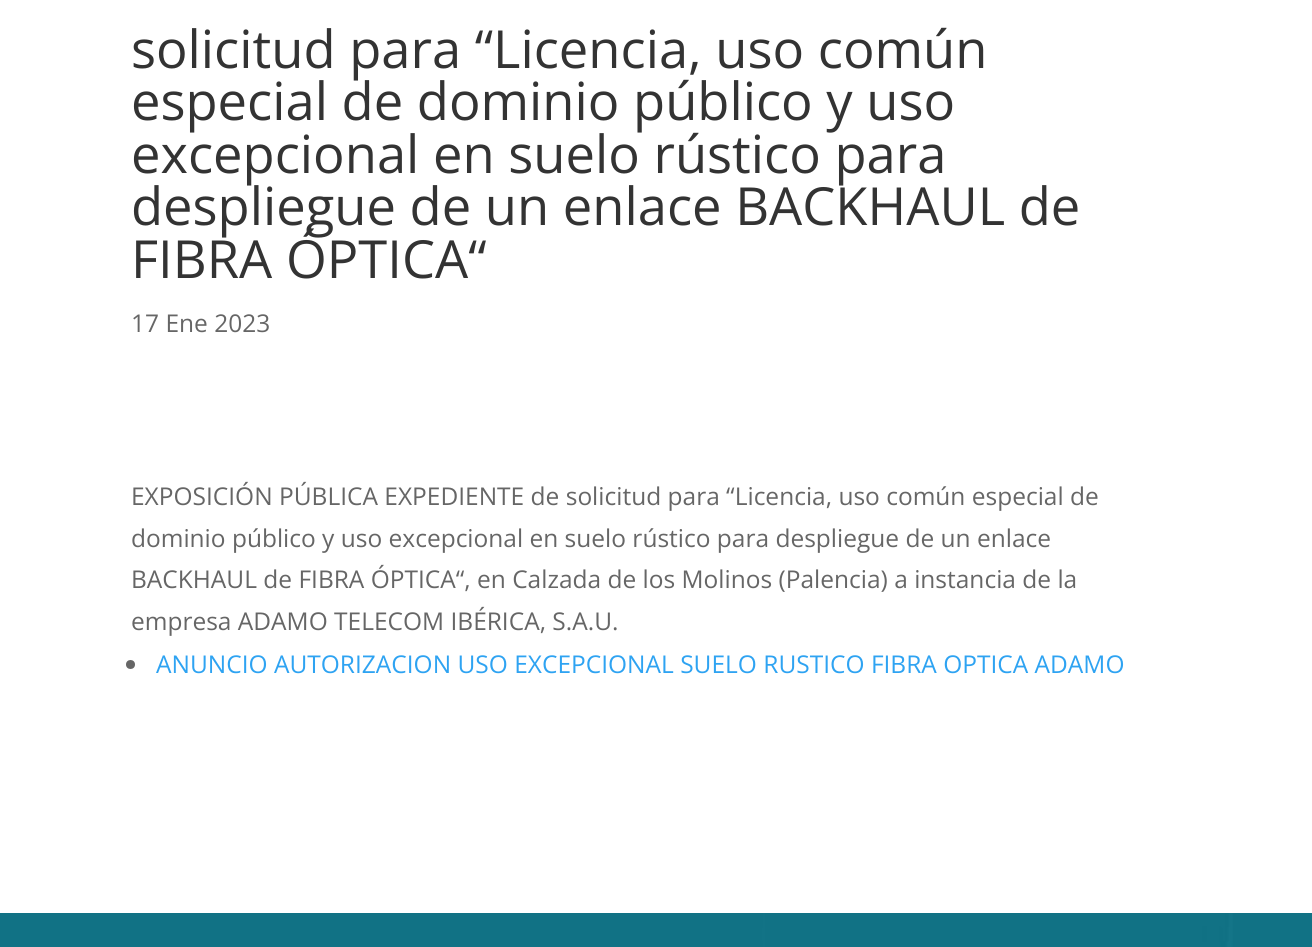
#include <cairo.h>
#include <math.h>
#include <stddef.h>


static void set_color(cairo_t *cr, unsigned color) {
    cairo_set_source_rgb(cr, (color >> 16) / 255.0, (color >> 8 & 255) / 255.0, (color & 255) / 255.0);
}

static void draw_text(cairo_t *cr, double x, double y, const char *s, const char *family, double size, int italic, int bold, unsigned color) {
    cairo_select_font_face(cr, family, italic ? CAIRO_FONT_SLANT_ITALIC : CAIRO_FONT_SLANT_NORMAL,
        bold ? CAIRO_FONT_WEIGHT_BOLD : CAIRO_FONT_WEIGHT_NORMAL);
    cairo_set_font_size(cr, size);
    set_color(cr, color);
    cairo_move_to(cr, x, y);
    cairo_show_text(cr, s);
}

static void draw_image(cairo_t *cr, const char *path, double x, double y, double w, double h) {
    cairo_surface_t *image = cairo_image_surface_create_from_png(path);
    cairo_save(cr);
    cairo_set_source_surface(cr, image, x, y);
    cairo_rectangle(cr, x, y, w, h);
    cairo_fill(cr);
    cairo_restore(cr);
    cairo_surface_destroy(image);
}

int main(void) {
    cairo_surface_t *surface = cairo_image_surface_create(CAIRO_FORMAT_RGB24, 1312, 947);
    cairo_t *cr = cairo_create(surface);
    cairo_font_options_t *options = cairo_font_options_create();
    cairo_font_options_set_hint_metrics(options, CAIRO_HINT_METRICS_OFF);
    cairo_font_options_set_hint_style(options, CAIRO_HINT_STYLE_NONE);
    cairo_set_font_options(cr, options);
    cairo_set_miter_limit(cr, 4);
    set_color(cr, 0xFFFFFF);
    cairo_paint(cr);
    draw_text(cr, 131, 68, "solicitud para “Licencia, uso común", "Open Sans", 52.5, 0, 0, 0x333333);
    draw_text(cr, 131, 120, "especial de dominio público y uso", "Open Sans", 52.5, 0, 0, 0x333333);
    draw_text(cr, 131, 173, "excepcional en suelo rústico para", "Open Sans", 52.5, 0, 0, 0x333333);
    draw_text(cr, 131, 225, "despliegue de un enlace BACKHAUL de", "Open Sans", 52.5, 0, 0, 0x333333);
    draw_text(cr, 131, 278, "FIBRA ÓPTICA“", "Open Sans", 52.5, 0, 0, 0x333333);
    draw_text(cr, 131, 332, "17 Ene 2023", "Open Sans", 24.5, 0, 0, 0x666666);
    draw_text(cr, 131, 505, "EXPOSICIÓN PÚBLICA EXPEDIENTE de solicitud para “Licencia, uso común especial de", "Open Sans", 24.5, 0, 0, 0x666666);
    draw_text(cr, 131, 547, "dominio público y uso excepcional en suelo rústico para despliegue de un enlace", "Open Sans", 24.5, 0, 0, 0x666666);
    draw_text(cr, 131, 588, "BACKHAUL de FIBRA ÓPTICA“, en Calzada de los Molinos (Palencia) a instancia de la", "Open Sans", 24.5, 0, 0, 0x666666);
    draw_text(cr, 131, 630, "empresa ADAMO TELECOM IBÉRICA, S.A.U.", "Open Sans", 24.5, 0, 0, 0x666666);
    cairo_new_path(cr);
    cairo_arc(cr, 130.5, 664.5, 4.5, 0, 2 * M_PI);
    cairo_fill(cr);
    draw_text(cr, 156, 673, "ANUNCIO AUTORIZACION USO EXCEPCIONAL SUELO RUSTICO FIBRA OPTICA ADAMO", "Open Sans", 24.5, 0, 0, 0x2EA3F2);
    draw_image(cr, "assets/img1.png", 0, 913, 1312, 34);
    cairo_surface_write_to_png(surface, "output.png");
    cairo_font_options_destroy(options);
    cairo_destroy(cr);
    cairo_surface_destroy(surface);
    return 0;
}
